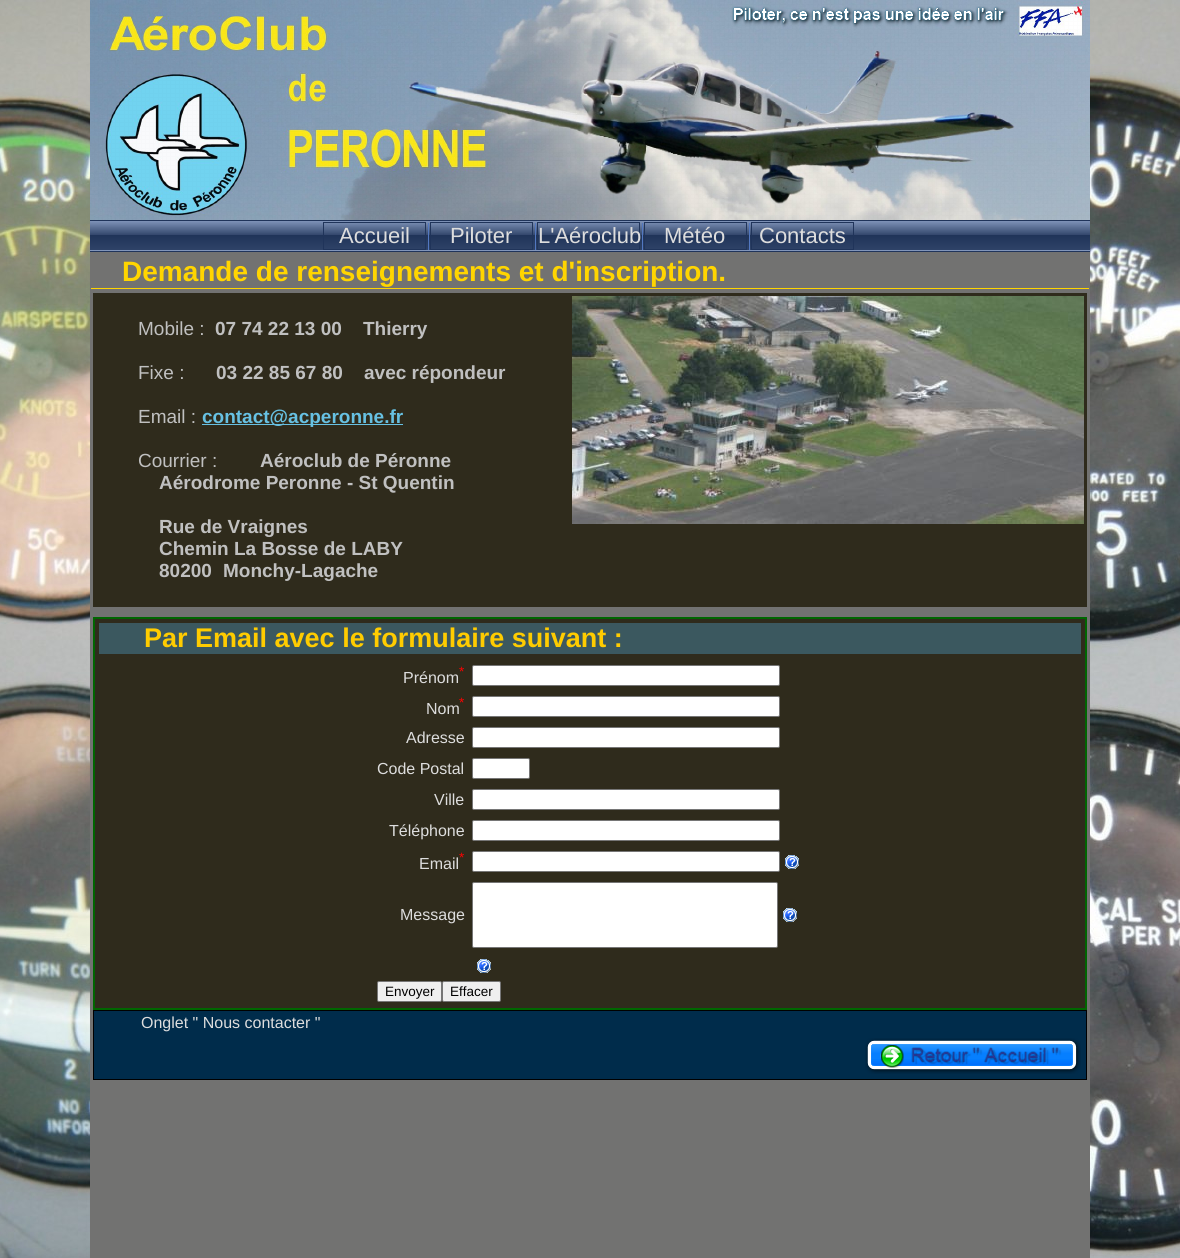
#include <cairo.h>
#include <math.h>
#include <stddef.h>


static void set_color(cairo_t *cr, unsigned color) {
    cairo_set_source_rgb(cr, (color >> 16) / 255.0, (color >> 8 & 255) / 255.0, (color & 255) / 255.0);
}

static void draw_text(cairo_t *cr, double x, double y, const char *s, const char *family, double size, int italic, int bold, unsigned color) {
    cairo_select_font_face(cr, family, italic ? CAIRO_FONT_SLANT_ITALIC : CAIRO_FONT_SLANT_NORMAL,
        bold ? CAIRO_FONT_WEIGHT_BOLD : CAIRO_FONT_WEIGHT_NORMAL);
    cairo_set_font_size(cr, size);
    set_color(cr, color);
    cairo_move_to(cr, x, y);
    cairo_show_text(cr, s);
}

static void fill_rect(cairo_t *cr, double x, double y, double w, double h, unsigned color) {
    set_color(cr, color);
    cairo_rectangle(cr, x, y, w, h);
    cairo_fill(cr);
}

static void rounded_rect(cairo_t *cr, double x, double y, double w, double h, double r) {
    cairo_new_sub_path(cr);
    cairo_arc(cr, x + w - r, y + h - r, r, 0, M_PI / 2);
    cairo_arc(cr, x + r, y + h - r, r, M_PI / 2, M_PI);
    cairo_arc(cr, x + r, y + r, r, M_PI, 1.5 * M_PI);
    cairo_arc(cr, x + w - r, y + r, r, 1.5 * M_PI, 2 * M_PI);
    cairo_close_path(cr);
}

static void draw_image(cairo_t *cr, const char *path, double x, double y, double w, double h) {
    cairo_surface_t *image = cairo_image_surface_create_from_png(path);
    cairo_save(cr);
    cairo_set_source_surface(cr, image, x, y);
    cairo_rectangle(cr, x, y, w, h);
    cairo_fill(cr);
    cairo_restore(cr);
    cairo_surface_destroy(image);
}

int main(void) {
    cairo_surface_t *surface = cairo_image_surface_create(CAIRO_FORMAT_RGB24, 1180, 1258);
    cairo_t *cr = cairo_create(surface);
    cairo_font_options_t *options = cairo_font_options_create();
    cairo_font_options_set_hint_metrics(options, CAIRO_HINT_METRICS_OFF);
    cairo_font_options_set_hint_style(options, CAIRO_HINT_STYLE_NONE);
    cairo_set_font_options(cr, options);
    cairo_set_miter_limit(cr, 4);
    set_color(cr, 0xFFFFFF);
    cairo_paint(cr);
    draw_image(cr, "assets/img1.png", 0, 0, 1180, 1258);
    fill_rect(cr, 90, 252, 1000, 1006, 0x727271);
    draw_image(cr, "assets/img2.png", 90, 0, 1000, 220);
    fill_rect(cr, 90, 220, 1000, 32, 0x20345A);
    draw_image(cr, "assets/img3.png", 90, 221, 1000, 30);
    cairo_rectangle(cr, 323.5, 222.5, 102, 27);
    cairo_set_line_width(cr, 1);
    cairo_stroke(cr);
    draw_text(cr, 339, 243, "Accueil", "Liberation Sans", 22, 0, 0, 0xDDDDDD);
    fill_rect(cr, 428, 223, 1, 27, 0x5278C1);
    cairo_rectangle(cr, 430.5, 222.5, 102, 27);
    set_color(cr, 0x20345A);
    cairo_stroke(cr);
    draw_text(cr, 450, 243, "Piloter", "Liberation Sans", 22, 0, 0, 0xDDDDDD);
    fill_rect(cr, 535, 223, 1, 27, 0x5278C1);
    cairo_rectangle(cr, 537.5, 222.5, 102, 27);
    set_color(cr, 0x20345A);
    cairo_stroke(cr);
    draw_text(cr, 538, 243, "L'Aéroclub", "Liberation Sans", 22, 0, 0, 0xDDDDDD);
    fill_rect(cr, 642, 223, 1, 27, 0x5278C1);
    cairo_rectangle(cr, 644.5, 222.5, 102, 27);
    set_color(cr, 0x20345A);
    cairo_stroke(cr);
    draw_text(cr, 664, 243, "Météo", "Liberation Sans", 22, 0, 0, 0xDDDDDD);
    fill_rect(cr, 749, 223, 1, 27, 0x5278C1);
    cairo_rectangle(cr, 751.5, 222.5, 102, 27);
    set_color(cr, 0x20345A);
    cairo_stroke(cr);
    draw_text(cr, 759, 243, "Contacts", "Liberation Sans", 22, 0, 0, 0xDDDDDD);
    fill_rect(cr, 91, 288, 998, 1, 0xFFD500);
    draw_text(cr, 122, 281, "Demande de renseignements et d'inscription.", "Liberation Sans", 28, 0, 1, 0xFFD500);
    fill_rect(cr, 93, 293, 994, 314, 0x2F2B1C);
    draw_text(cr, 138, 335, "Mobile :", "Liberation Sans", 19, 0, 0, 0xC0C0C0);
    draw_text(cr, 215, 335, "07 74 22 13 00", "Liberation Sans", 19, 0, 1, 0xC0C0C0);
    draw_text(cr, 363, 335, "Thierry", "Liberation Sans", 19, 0, 1, 0xC0C0C0);
    draw_image(cr, "assets/img4.png", 572, 296, 512, 228);
    draw_text(cr, 138, 379, "Fixe :", "Liberation Sans", 19, 0, 0, 0xC0C0C0);
    draw_text(cr, 216, 379, "03 22 85 67 80", "Liberation Sans", 19, 0, 1, 0xC0C0C0);
    draw_text(cr, 364, 379, "avec répondeur", "Liberation Sans", 19, 0, 1, 0xC0C0C0);
    draw_text(cr, 138, 423, "Email :", "Liberation Sans", 19, 0, 0, 0xC0C0C0);
    fill_rect(cr, 202, 424, 201, 1, 0x67C1E3);
    draw_text(cr, 202, 423, "contact@acperonne.fr", "Liberation Sans", 19, 0, 1, 0x67C1E3);
    draw_text(cr, 138, 467, "Courrier :", "Liberation Sans", 19, 0, 0, 0xC0C0C0);
    draw_text(cr, 260, 467, "Aéroclub de Péronne", "Liberation Sans", 19, 0, 1, 0xC0C0C0);
    draw_text(cr, 159, 489, "Aérodrome Peronne - St Quentin", "Liberation Sans", 19, 0, 1, 0xC0C0C0);
    draw_text(cr, 159, 533, "Rue de Vraignes", "Liberation Sans", 19, 0, 1, 0xC0C0C0);
    draw_text(cr, 159, 555, "Chemin La Bosse de LABY", "Liberation Sans", 19, 0, 1, 0xC0C0C0);
    draw_text(cr, 159, 577, "80200", "Liberation Sans", 19, 0, 1, 0xC0C0C0);
    draw_text(cr, 223, 577, "Monchy-Lagache", "Liberation Sans", 19, 0, 1, 0xC0C0C0);
    set_color(cr, 0x2F2B1C);
    cairo_rectangle(cr, 94, 618, 992, 391);
    cairo_fill_preserve(cr);
    set_color(cr, 0x006600);
    cairo_set_line_width(cr, 2);
    cairo_stroke(cr);
    fill_rect(cr, 99, 623, 982, 31, 0x3B585F);
    draw_text(cr, 144, 647, "Par Email avec le formulaire suivant :", "Liberation Sans", 27, 0, 1, 0xFFCC00);
    draw_text(cr, 459, 676, "*", "Liberation Sans", 13.5, 0, 0, 0xFF0000);
    draw_text(cr, 403, 683, "Prénom", "Liberation Sans", 16, 0, 0, 0xDDDDDD);
    set_color(cr, 0xFFFFFF);
    rounded_rect(cr, 472.5, 665.5, 307, 20, 1.5);
    cairo_fill_preserve(cr);
    set_color(cr, 0x767676);
    cairo_set_line_width(cr, 1);
    cairo_stroke(cr);
    draw_text(cr, 459, 707, "*", "Liberation Sans", 13.5, 0, 0, 0xFF0000);
    draw_text(cr, 426, 714, "Nom", "Liberation Sans", 16, 0, 0, 0xDDDDDD);
    set_color(cr, 0xFFFFFF);
    rounded_rect(cr, 472.5, 696.5, 307, 20, 1.5);
    cairo_fill_preserve(cr);
    set_color(cr, 0x767676);
    cairo_stroke(cr);
    draw_text(cr, 406, 743, "Adresse", "Liberation Sans", 16, 0, 0, 0xDDDDDD);
    set_color(cr, 0xFFFFFF);
    rounded_rect(cr, 472.5, 727.5, 307, 20, 1.5);
    cairo_fill_preserve(cr);
    set_color(cr, 0x767676);
    cairo_stroke(cr);
    draw_text(cr, 377, 774, "Code Postal", "Liberation Sans", 16, 0, 0, 0xDDDDDD);
    set_color(cr, 0xFFFFFF);
    rounded_rect(cr, 472.5, 758.5, 57, 20, 1.5);
    cairo_fill_preserve(cr);
    set_color(cr, 0x767676);
    cairo_stroke(cr);
    draw_text(cr, 434, 805, "Ville", "Liberation Sans", 16, 0, 0, 0xDDDDDD);
    set_color(cr, 0xFFFFFF);
    rounded_rect(cr, 472.5, 789.5, 307, 20, 1.5);
    cairo_fill_preserve(cr);
    set_color(cr, 0x767676);
    cairo_stroke(cr);
    draw_text(cr, 389, 836, "Téléphone", "Liberation Sans", 16, 0, 0, 0xDDDDDD);
    set_color(cr, 0xFFFFFF);
    rounded_rect(cr, 472.5, 820.5, 307, 20, 1.5);
    cairo_fill_preserve(cr);
    set_color(cr, 0x767676);
    cairo_stroke(cr);
    draw_text(cr, 459, 862, "*", "Liberation Sans", 13.5, 0, 0, 0xFF0000);
    draw_text(cr, 419, 869, "Email", "Liberation Sans", 16, 0, 0, 0xDDDDDD);
    set_color(cr, 0xFFFFFF);
    rounded_rect(cr, 472.5, 851.5, 307, 20, 1.5);
    cairo_fill_preserve(cr);
    set_color(cr, 0x767676);
    cairo_stroke(cr);
    draw_image(cr, "assets/img5.png", 785, 855, 14, 14);
    draw_text(cr, 400, 920, "Message", "Liberation Sans", 16, 0, 0, 0xDDDDDD);
    set_color(cr, 0xFFFFFF);
    rounded_rect(cr, 472.5, 882.5, 305, 65, 1.5);
    cairo_fill_preserve(cr);
    set_color(cr, 0x767676);
    cairo_stroke(cr);
    draw_image(cr, "assets/img5.png", 783, 908, 14, 14);
    draw_image(cr, "assets/img5.png", 477, 959, 14, 14);
    set_color(cr, 0xEFEFEF);
    rounded_rect(cr, 377.5, 981.5, 64, 20, 1.5);
    cairo_fill_preserve(cr);
    set_color(cr, 0x767676);
    cairo_stroke(cr);
    draw_text(cr, 385, 996, "Envoyer", "Liberation Sans", 13.5, 0, 0, 0x000000);
    set_color(cr, 0xEFEFEF);
    rounded_rect(cr, 442.5, 981.5, 58, 20, 1.5);
    cairo_fill_preserve(cr);
    set_color(cr, 0x767676);
    cairo_stroke(cr);
    draw_text(cr, 450, 996, "Effacer", "Liberation Sans", 13.5, 0, 0, 0x000000);
    set_color(cr, 0x002C4B);
    cairo_rectangle(cr, 93.5, 1010.5, 993, 69);
    cairo_fill_preserve(cr);
    set_color(cr, 0x000000);
    cairo_stroke(cr);
    draw_text(cr, 141, 1028, "Onglet \" Nous contacter \"", "Liberation Sans", 16, 0, 0, 0xDDDDDD);
    draw_image(cr, "assets/img6.png", 865, 1038, 216, 36);
    cairo_surface_write_to_png(surface, "output.png");
    cairo_font_options_destroy(options);
    cairo_destroy(cr);
    cairo_surface_destroy(surface);
    return 0;
}
